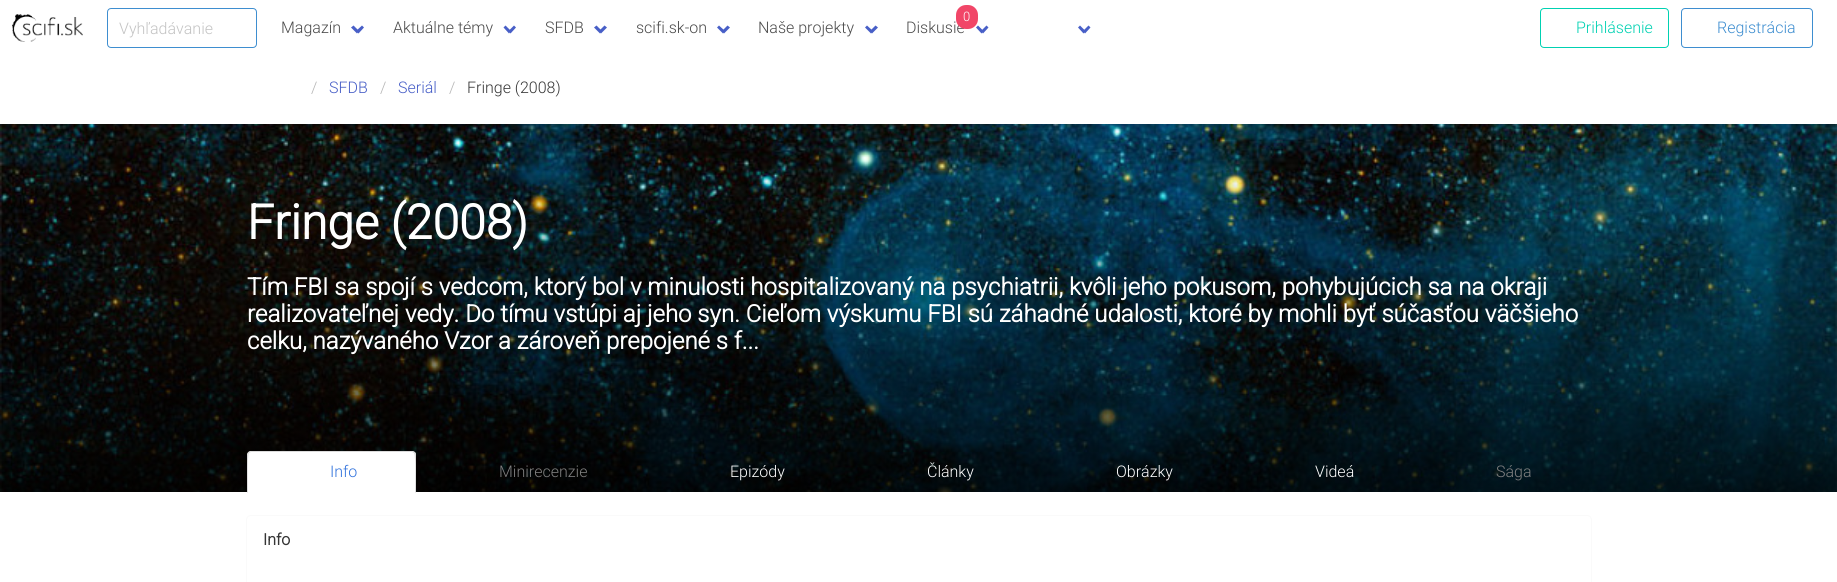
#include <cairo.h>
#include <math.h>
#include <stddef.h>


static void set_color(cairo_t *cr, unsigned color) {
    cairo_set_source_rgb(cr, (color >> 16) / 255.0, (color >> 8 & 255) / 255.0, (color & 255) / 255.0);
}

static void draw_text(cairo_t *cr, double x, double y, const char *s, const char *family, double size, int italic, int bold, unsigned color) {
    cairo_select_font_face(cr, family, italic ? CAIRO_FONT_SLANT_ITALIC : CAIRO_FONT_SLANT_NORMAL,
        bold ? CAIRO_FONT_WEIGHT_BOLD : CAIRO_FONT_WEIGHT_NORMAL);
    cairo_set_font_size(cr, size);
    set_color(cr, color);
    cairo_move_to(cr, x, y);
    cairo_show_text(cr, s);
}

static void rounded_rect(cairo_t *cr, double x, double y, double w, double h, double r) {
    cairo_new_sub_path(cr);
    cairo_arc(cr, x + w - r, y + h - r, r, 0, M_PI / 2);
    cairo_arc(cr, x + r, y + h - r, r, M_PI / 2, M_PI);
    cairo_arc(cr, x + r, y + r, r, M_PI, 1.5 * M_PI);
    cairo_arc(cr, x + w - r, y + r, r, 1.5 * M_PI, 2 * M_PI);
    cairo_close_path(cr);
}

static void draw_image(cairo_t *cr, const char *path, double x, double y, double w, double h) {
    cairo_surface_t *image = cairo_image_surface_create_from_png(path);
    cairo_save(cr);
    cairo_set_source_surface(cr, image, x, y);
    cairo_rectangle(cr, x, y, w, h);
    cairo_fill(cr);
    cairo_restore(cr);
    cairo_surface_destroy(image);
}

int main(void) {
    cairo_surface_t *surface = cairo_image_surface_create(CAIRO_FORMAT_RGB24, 1837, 582);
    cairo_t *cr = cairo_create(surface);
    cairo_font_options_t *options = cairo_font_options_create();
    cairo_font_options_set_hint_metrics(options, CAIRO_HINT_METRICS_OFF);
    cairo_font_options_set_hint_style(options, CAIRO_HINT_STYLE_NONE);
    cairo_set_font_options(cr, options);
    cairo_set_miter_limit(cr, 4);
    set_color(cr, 0xFFFFFF);
    cairo_paint(cr);
    draw_image(cr, "assets/img1.png", 12, 14, 71, 28);
    rounded_rect(cr, 107.5, 8.5, 149, 39, 3.5);
    set_color(cr, 0x3E8ED0);
    cairo_set_line_width(cr, 1);
    cairo_stroke(cr);
    draw_text(cr, 119, 34, "Vyhľadávanie", "Roboto Light", 16, 0, 0, 0xC3C3C3);
    draw_text(cr, 281, 33, "Magazín", "Roboto Light", 16, 0, 0, 0x4A4A4A);
    set_color(cr, 0x485FC7);
    cairo_new_path(cr);
    cairo_move_to(cr, 356, 31);
    cairo_line_to(cr, 362, 25.5);
    cairo_line_to(cr, 364, 27.5);
    cairo_line_to(cr, 358.5, 33.5);
    cairo_close_path(cr);
    cairo_fill(cr);
    cairo_new_path(cr);
    cairo_move_to(cr, 351, 27.5);
    cairo_line_to(cr, 353.5, 25.5);
    cairo_line_to(cr, 359, 31);
    cairo_line_to(cr, 357, 33.5);
    cairo_close_path(cr);
    cairo_fill(cr);
    draw_text(cr, 393, 33, "Aktuálne témy", "Roboto Light", 16, 0, 0, 0x4A4A4A);
    set_color(cr, 0x485FC7);
    cairo_new_path(cr);
    cairo_move_to(cr, 508.5, 31);
    cairo_line_to(cr, 514, 25.5);
    cairo_line_to(cr, 516, 27.5);
    cairo_line_to(cr, 510.5, 33.5);
    cairo_close_path(cr);
    cairo_fill(cr);
    cairo_new_path(cr);
    cairo_move_to(cr, 503.5, 27.5);
    cairo_line_to(cr, 505.5, 25.5);
    cairo_line_to(cr, 511, 31);
    cairo_line_to(cr, 509, 33.5);
    cairo_close_path(cr);
    cairo_fill(cr);
    draw_text(cr, 545, 33, "SFDB", "Roboto Light", 16, 0, 0, 0x4A4A4A);
    set_color(cr, 0x485FC7);
    cairo_new_path(cr);
    cairo_move_to(cr, 599, 31);
    cairo_line_to(cr, 604.5, 25.5);
    cairo_line_to(cr, 607, 27.5);
    cairo_line_to(cr, 601, 33.5);
    cairo_close_path(cr);
    cairo_fill(cr);
    cairo_new_path(cr);
    cairo_move_to(cr, 594, 27.5);
    cairo_line_to(cr, 596.5, 25.5);
    cairo_line_to(cr, 602, 31);
    cairo_line_to(cr, 600, 33.5);
    cairo_close_path(cr);
    cairo_fill(cr);
    draw_text(cr, 636, 33, "scifi.sk-on", "Roboto Light", 16, 0, 0, 0x4A4A4A);
    set_color(cr, 0x485FC7);
    cairo_new_path(cr);
    cairo_move_to(cr, 722, 31);
    cairo_line_to(cr, 727.5, 25.5);
    cairo_line_to(cr, 730, 27.5);
    cairo_line_to(cr, 724, 33.5);
    cairo_close_path(cr);
    cairo_fill(cr);
    cairo_new_path(cr);
    cairo_move_to(cr, 717, 27.5);
    cairo_line_to(cr, 719, 25.5);
    cairo_line_to(cr, 725, 31);
    cairo_line_to(cr, 723, 33.5);
    cairo_close_path(cr);
    cairo_fill(cr);
    draw_text(cr, 758, 33, "Naše projekty", "Roboto Light", 16, 0, 0, 0x4A4A4A);
    set_color(cr, 0x485FC7);
    cairo_new_path(cr);
    cairo_move_to(cr, 870, 31);
    cairo_line_to(cr, 875.5, 25.5);
    cairo_line_to(cr, 878, 27.5);
    cairo_line_to(cr, 872, 33.5);
    cairo_close_path(cr);
    cairo_fill(cr);
    cairo_new_path(cr);
    cairo_move_to(cr, 865, 27.5);
    cairo_line_to(cr, 867, 25.5);
    cairo_line_to(cr, 873, 31);
    cairo_line_to(cr, 871, 33.5);
    cairo_close_path(cr);
    cairo_fill(cr);
    draw_text(cr, 906, 33, "Diskusie", "Roboto Light", 16, 0, 0, 0x4A4A4A);
    set_color(cr, 0xF14668);
    rounded_rect(cr, 956, 5, 22, 24, 10);
    cairo_fill(cr);
    draw_text(cr, 963, 21, "0", "Roboto Light", 13, 0, 0, 0xFFFFFF);
    set_color(cr, 0x485FC7);
    cairo_new_path(cr);
    cairo_move_to(cr, 981, 31);
    cairo_line_to(cr, 986.5, 25.5);
    cairo_line_to(cr, 988.5, 27.5);
    cairo_line_to(cr, 983, 33.5);
    cairo_close_path(cr);
    cairo_fill(cr);
    cairo_new_path(cr);
    cairo_move_to(cr, 976, 27.5);
    cairo_line_to(cr, 978, 25.5);
    cairo_line_to(cr, 983.5, 31);
    cairo_line_to(cr, 981.5, 33.5);
    cairo_close_path(cr);
    cairo_fill(cr);
    cairo_new_path(cr);
    cairo_move_to(cr, 1083, 31);
    cairo_line_to(cr, 1088.5, 25.5);
    cairo_line_to(cr, 1090.5, 27.5);
    cairo_line_to(cr, 1085, 33.5);
    cairo_close_path(cr);
    cairo_fill(cr);
    cairo_new_path(cr);
    cairo_move_to(cr, 1078, 27.5);
    cairo_line_to(cr, 1080, 25.5);
    cairo_line_to(cr, 1085.5, 31);
    cairo_line_to(cr, 1083.5, 33.5);
    cairo_close_path(cr);
    cairo_fill(cr);
    rounded_rect(cr, 1540.5, 8.5, 128, 39, 3.5);
    set_color(cr, 0x00D1B2);
    cairo_stroke(cr);
    draw_text(cr, 1576, 33, "Prihlásenie", "Roboto Light", 16, 0, 0, 0x00D1B2);
    rounded_rect(cr, 1681.5, 8.5, 131, 39, 3.5);
    set_color(cr, 0x3E8ED0);
    cairo_stroke(cr);
    draw_text(cr, 1717, 33, "Registrácia", "Roboto Light", 16, 0, 0, 0x3E8ED0);
    draw_text(cr, 311, 93, "/", "Roboto Light", 16, 0, 0, 0xB5B5B5);
    draw_text(cr, 329, 93, "SFDB", "Roboto Light", 16, 0, 0, 0x485FC7);
    draw_text(cr, 380, 93, "/", "Roboto Light", 16, 0, 0, 0xB5B5B5);
    draw_text(cr, 398, 93, "Seriál", "Roboto Light", 16, 0, 0, 0x485FC7);
    draw_text(cr, 449, 93, "/", "Roboto Light", 16, 0, 0, 0xB5B5B5);
    draw_text(cr, 467, 93, "Fringe (2008)", "Roboto Light", 16, 0, 0, 0x363636);
    draw_image(cr, "assets/img2.png", 0, 124, 1837, 368);
    draw_text(cr, 247, 239, "Fringe (2008)", "Roboto", 48, 0, 1, 0xFFFFFF);
    draw_text(cr, 247, 295, "Tím FBI sa spojí s vedcom, ktorý bol v minulosti hospitalizovaný na psychiatrii, kvôli jeho pokusom, pohybujúcich sa na okraji", "Roboto", 24, 0, 1, 0xFFFFFF);
    draw_text(cr, 247, 322, "realizovateľnej vedy. Do tímu vstúpi aj jeho syn. Cieľom výskumu FBI sú záhadné udalosti, ktoré by mohli byť súčasťou väčšieho", "Roboto", 24, 0, 1, 0xFFFFFF);
    draw_text(cr, 247, 349, "celku, nazývaného Vzor a zároveň prepojené s f...", "Roboto", 24, 0, 1, 0xFFFFFF);
    cairo_new_path(cr);
    cairo_move_to(cr, 251, 451);
    cairo_line_to(cr, 412, 451);
    cairo_curve_to(cr, 414, 451, 416, 453, 416, 455);
    cairo_line_to(cr, 416, 492);
    cairo_line_to(cr, 247, 492);
    cairo_line_to(cr, 247, 455);
    cairo_curve_to(cr, 247, 453, 249, 451, 251, 451);
    cairo_close_path(cr);
    cairo_fill(cr);
    set_color(cr, 0xDBDBDB);
    cairo_new_path(cr);
    cairo_move_to(cr, 251, 451);
    cairo_line_to(cr, 248, 452);
    cairo_line_to(cr, 249, 453);
    cairo_line_to(cr, 251, 452);
    cairo_line_to(cr, 412, 452);
    cairo_line_to(cr, 414, 453);
    cairo_line_to(cr, 415, 452);
    cairo_line_to(cr, 412, 451);
    cairo_close_path(cr);
    cairo_fill(cr);
    cairo_new_path(cr);
    cairo_move_to(cr, 416, 493);
    cairo_line_to(cr, 416, 455);
    cairo_curve_to(cr, 416, 454, 416, 453, 415, 452);
    cairo_line_to(cr, 414, 453);
    cairo_curve_to(cr, 416, 455, 415, 487, 415, 492);
    cairo_close_path(cr);
    cairo_fill(cr);
    cairo_new_path(cr);
    cairo_move_to(cr, 247, 493);
    cairo_line_to(cr, 248, 492);
    cairo_curve_to(cr, 248, 487, 247, 455, 249, 453);
    cairo_line_to(cr, 248, 452);
    cairo_line_to(cr, 247, 455);
    cairo_close_path(cr);
    cairo_fill(cr);
    draw_text(cr, 330, 477, "Info", "Roboto Light", 16, 0, 0, 0x3273DC);
    draw_text(cr, 499, 477, "Minirecenzie", "Roboto Light", 16, 0, 0, 0x808080);
    draw_text(cr, 730, 477, "Epizódy", "Roboto Light", 16, 0, 0, 0xFFFFFF);
    draw_text(cr, 927, 477, "Články", "Roboto Light", 16, 0, 0, 0xFFFFFF);
    draw_text(cr, 1116, 477, "Obrázky", "Roboto Light", 16, 0, 0, 0xFFFFFF);
    draw_text(cr, 1315, 477, "Videá", "Roboto Light", 16, 0, 0, 0xFFFFFF);
    draw_text(cr, 1496, 477, "Sága", "Roboto Light", 16, 0, 0, 0x808080);
    rounded_rect(cr, 246.5, 515.5, 1345, 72, 4.5);
    set_color(cr, 0xFAFAFA);
    cairo_stroke(cr);
    draw_text(cr, 263, 545, "Info", "Roboto", 16, 0, 1, 0x363636);
    cairo_surface_write_to_png(surface, "output.png");
    cairo_font_options_destroy(options);
    cairo_destroy(cr);
    cairo_surface_destroy(surface);
    return 0;
}
